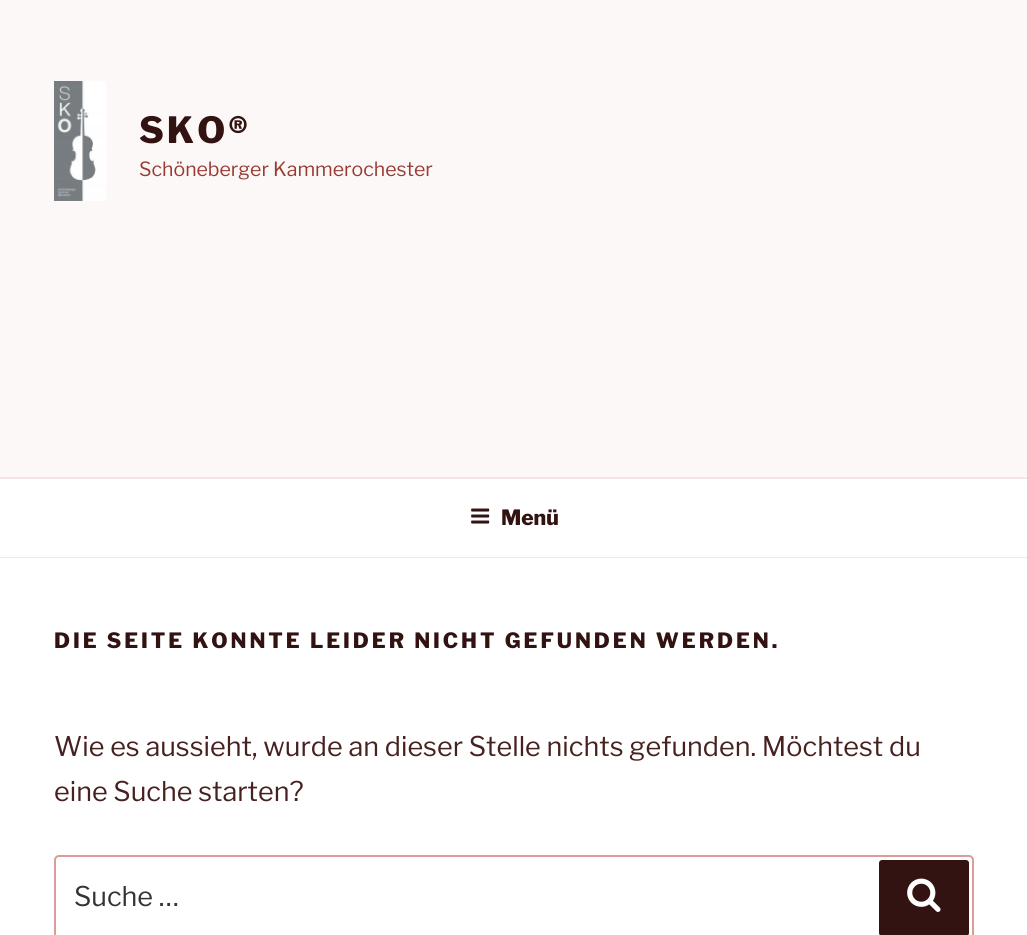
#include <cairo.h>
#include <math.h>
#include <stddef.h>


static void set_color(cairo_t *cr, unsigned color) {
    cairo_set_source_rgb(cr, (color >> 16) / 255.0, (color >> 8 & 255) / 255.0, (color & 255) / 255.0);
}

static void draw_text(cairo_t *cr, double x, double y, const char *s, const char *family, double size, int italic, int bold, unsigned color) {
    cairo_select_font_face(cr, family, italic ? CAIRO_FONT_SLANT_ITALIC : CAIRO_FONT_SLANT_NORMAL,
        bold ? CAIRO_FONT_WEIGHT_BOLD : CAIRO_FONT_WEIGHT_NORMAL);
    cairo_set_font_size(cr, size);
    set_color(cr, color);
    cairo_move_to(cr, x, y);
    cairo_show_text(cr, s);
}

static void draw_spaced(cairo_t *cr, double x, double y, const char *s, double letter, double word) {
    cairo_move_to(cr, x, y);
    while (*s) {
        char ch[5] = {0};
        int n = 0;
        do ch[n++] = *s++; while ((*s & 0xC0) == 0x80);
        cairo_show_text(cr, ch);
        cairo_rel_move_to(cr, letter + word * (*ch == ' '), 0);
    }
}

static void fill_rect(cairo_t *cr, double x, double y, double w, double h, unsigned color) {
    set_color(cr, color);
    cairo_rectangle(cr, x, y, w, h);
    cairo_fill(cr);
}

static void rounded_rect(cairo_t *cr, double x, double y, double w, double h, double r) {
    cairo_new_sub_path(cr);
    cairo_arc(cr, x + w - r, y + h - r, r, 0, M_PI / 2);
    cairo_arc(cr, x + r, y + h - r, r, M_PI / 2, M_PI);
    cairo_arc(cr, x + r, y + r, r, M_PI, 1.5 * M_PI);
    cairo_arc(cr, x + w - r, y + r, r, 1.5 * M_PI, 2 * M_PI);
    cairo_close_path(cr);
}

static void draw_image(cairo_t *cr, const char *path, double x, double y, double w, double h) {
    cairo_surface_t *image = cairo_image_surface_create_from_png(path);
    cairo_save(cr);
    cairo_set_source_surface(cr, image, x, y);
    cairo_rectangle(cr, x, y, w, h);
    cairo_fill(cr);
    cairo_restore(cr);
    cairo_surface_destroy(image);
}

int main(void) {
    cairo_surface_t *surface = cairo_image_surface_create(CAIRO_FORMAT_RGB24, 1027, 935);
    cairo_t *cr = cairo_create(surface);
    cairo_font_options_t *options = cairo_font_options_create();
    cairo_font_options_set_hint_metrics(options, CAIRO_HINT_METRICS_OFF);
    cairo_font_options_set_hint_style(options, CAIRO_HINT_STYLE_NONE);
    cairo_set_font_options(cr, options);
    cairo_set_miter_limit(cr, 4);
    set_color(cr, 0xFCF8F7);
    cairo_paint(cr);
    draw_image(cr, "assets/img1.png", 54, 81, 53, 120);
    cairo_select_font_face(cr, "Libre Franklin ExtraBold", CAIRO_FONT_SLANT_NORMAL, CAIRO_FONT_WEIGHT_NORMAL);
    cairo_set_font_size(cr, 36);
    set_color(cr, 0x321311);
    draw_spaced(cr, 139, 143, "SKO®", 3, 0);
    draw_text(cr, 139, 176, "Schöneberger Kammerochester", "Libre Franklin", 19.5, 0, 0, 0x993A33);
    fill_rect(cr, 0, 479, 1027, 78, 0xFFFFFF);
    fill_rect(cr, 0, 477, 1027, 2, 0xF6E5E4);
    fill_rect(cr, 0, 557, 1027, 1, 0xF6E5E4);
    draw_image(cr, "assets/img2.png", 471, 508, 19, 16);
    draw_text(cr, 501, 525, "Menü", "Libre Franklin ExtraBold", 21, 0, 0, 0x321311);
    fill_rect(cr, 0, 558, 1027, 377, 0xFFFFFF);
    set_color(cr, 0x321311);
    draw_spaced(cr, 54, 648, "DIE SEITE KONNTE LEIDER NICHT GEFUNDEN WERDEN.", 2.95, 0);
    draw_text(cr, 54, 756, "Wie es aussieht, wurde an dieser Stelle nichts gefunden. Möchtest du", "Libre Franklin", 27, 0, 0, 0x47211F);
    draw_text(cr, 54, 801, "eine Suche starten?", "Libre Franklin", 27, 0, 0, 0x47211F);
    rounded_rect(cr, 55, 856, 918, 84, 4);
    set_color(cr, 0xDD9C98);
    cairo_stroke(cr);
    draw_text(cr, 74, 906, "Suche …", "Libre Franklin", 27, 0, 0, 0x333333);
    set_color(cr, 0x321311);
    rounded_rect(cr, 879, 860, 90, 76, 3);
    cairo_fill(cr);
    draw_image(cr, "assets/img3.png", 907, 878, 34, 34);
    cairo_surface_write_to_png(surface, "output.png");
    cairo_font_options_destroy(options);
    cairo_destroy(cr);
    cairo_surface_destroy(surface);
    return 0;
}
